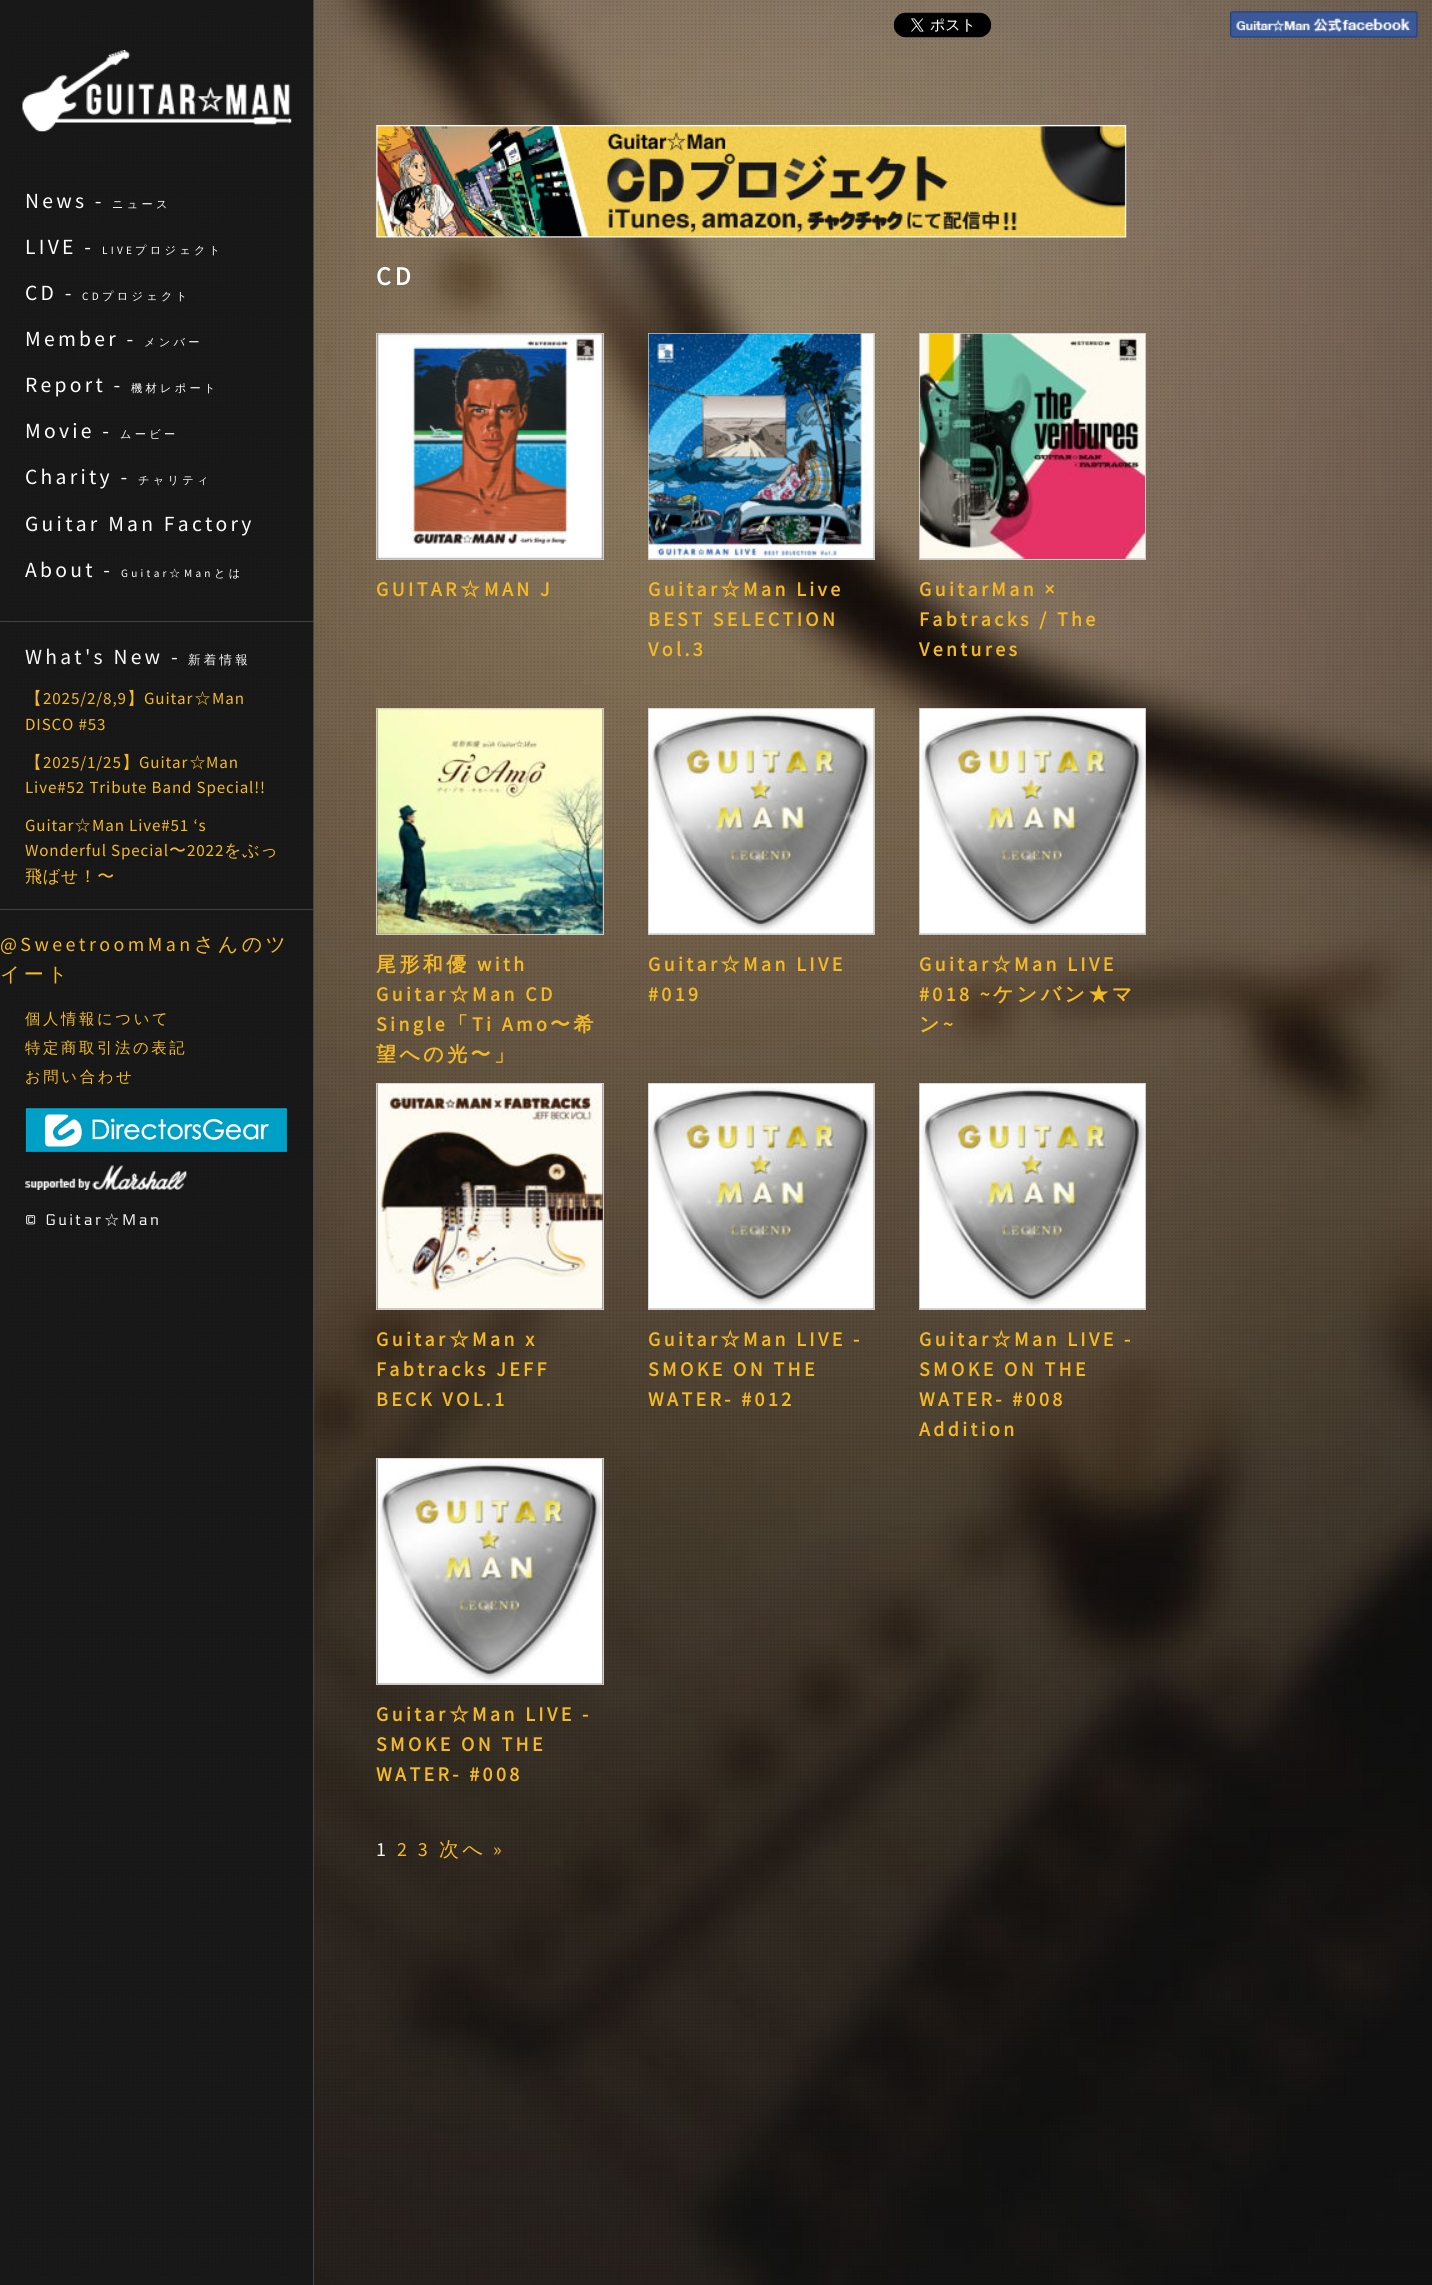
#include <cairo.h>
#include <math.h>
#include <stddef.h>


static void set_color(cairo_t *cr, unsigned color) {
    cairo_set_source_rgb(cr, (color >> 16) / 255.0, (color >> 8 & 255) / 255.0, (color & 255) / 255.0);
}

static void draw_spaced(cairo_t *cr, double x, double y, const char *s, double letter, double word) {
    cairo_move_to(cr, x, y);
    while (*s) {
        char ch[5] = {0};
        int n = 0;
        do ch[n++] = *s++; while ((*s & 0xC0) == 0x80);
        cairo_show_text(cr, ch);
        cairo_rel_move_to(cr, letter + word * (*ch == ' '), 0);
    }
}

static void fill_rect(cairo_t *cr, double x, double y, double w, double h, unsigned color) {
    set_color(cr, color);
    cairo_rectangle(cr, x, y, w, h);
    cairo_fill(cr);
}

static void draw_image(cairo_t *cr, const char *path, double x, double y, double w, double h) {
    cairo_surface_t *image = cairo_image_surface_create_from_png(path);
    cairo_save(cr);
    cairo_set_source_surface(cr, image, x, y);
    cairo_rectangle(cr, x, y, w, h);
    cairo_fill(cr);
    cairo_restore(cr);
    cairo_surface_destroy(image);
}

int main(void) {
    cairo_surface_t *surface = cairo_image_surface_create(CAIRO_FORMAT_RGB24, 1432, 2285);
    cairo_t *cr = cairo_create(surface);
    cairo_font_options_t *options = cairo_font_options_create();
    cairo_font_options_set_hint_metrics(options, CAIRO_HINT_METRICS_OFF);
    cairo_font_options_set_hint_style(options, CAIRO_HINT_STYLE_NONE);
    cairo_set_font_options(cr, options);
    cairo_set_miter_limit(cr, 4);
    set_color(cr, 0xFFFFFF);
    cairo_paint(cr);
    draw_image(cr, "assets/img1.png", 314, 0, 1118, 2285);
    draw_image(cr, "assets/img2.png", 316, 1, 1116, 2281);
    fill_rect(cr, 0, 0, 313, 2285, 0x181818);
    draw_image(cr, "assets/img3.png", 9, 9, 301, 2266);
    fill_rect(cr, 313, 0, 1, 2285, 0x444444);
    draw_image(cr, "assets/img4.png", 22, 50, 270, 82);
    cairo_select_font_face(cr, "Source Sans Pro", CAIRO_FONT_SLANT_NORMAL, CAIRO_FONT_WEIGHT_NORMAL);
    cairo_set_font_size(cr, 21.6);
    set_color(cr, 0xFFFFFF);
    draw_spaced(cr, 25, 208, "News -", 3.25, 0);
    cairo_select_font_face(cr, "WenQuanYi Zen Hei Medium", CAIRO_FONT_SLANT_NORMAL, CAIRO_FONT_WEIGHT_NORMAL);
    cairo_set_font_size(cr, 11.25);
    draw_spaced(cr, 112, 208, "ニュース", 3.25, 0);
    cairo_select_font_face(cr, "Source Sans Pro", CAIRO_FONT_SLANT_NORMAL, CAIRO_FONT_WEIGHT_NORMAL);
    cairo_set_font_size(cr, 21.6);
    draw_spaced(cr, 25, 254, "LIVE -", 3.25, 0);
    cairo_set_font_size(cr, 11.25);
    draw_spaced(cr, 102, 254, "LIVE", 3.25, 0);
    cairo_select_font_face(cr, "WenQuanYi Zen Hei Medium", CAIRO_FONT_SLANT_NORMAL, CAIRO_FONT_WEIGHT_NORMAL);
    draw_spaced(cr, 135, 254, "プロジェクト", 3.25, 0);
    cairo_select_font_face(cr, "Source Sans Pro", CAIRO_FONT_SLANT_NORMAL, CAIRO_FONT_WEIGHT_NORMAL);
    cairo_set_font_size(cr, 21.6);
    draw_spaced(cr, 25, 300, "CD -", 3.25, 0);
    cairo_set_font_size(cr, 11.25);
    draw_spaced(cr, 82, 300, "CD", 3.25, 0);
    cairo_select_font_face(cr, "WenQuanYi Zen Hei Medium", CAIRO_FONT_SLANT_NORMAL, CAIRO_FONT_WEIGHT_NORMAL);
    draw_spaced(cr, 102, 300, "プロジェクト", 3.25, 0);
    cairo_select_font_face(cr, "Source Sans Pro", CAIRO_FONT_SLANT_NORMAL, CAIRO_FONT_WEIGHT_NORMAL);
    cairo_set_font_size(cr, 21.6);
    draw_spaced(cr, 25, 346, "Member -", 3.25, 0);
    cairo_select_font_face(cr, "WenQuanYi Zen Hei Medium", CAIRO_FONT_SLANT_NORMAL, CAIRO_FONT_WEIGHT_NORMAL);
    cairo_set_font_size(cr, 11.25);
    draw_spaced(cr, 144, 346, "メンバー", 3.25, 0);
    cairo_select_font_face(cr, "Source Sans Pro", CAIRO_FONT_SLANT_NORMAL, CAIRO_FONT_WEIGHT_NORMAL);
    cairo_set_font_size(cr, 21.6);
    draw_spaced(cr, 25, 392, "Report -", 3.25, 0);
    cairo_select_font_face(cr, "WenQuanYi Zen Hei Medium", CAIRO_FONT_SLANT_NORMAL, CAIRO_FONT_WEIGHT_NORMAL);
    cairo_set_font_size(cr, 11.25);
    draw_spaced(cr, 131, 392, "機材レポート", 3.25, 0);
    cairo_select_font_face(cr, "Source Sans Pro", CAIRO_FONT_SLANT_NORMAL, CAIRO_FONT_WEIGHT_NORMAL);
    cairo_set_font_size(cr, 21.6);
    draw_spaced(cr, 25, 438, "Movie -", 3.25, 0);
    cairo_select_font_face(cr, "WenQuanYi Zen Hei Medium", CAIRO_FONT_SLANT_NORMAL, CAIRO_FONT_WEIGHT_NORMAL);
    cairo_set_font_size(cr, 11.25);
    draw_spaced(cr, 120, 438, "ムービー", 3.25, 0);
    cairo_select_font_face(cr, "Source Sans Pro", CAIRO_FONT_SLANT_NORMAL, CAIRO_FONT_WEIGHT_NORMAL);
    cairo_set_font_size(cr, 21.6);
    draw_spaced(cr, 25, 484, "Charity -", 3.25, 0);
    cairo_select_font_face(cr, "WenQuanYi Zen Hei Medium", CAIRO_FONT_SLANT_NORMAL, CAIRO_FONT_WEIGHT_NORMAL);
    cairo_set_font_size(cr, 11.25);
    draw_spaced(cr, 138, 484, "チャリティ", 3.25, 0);
    cairo_select_font_face(cr, "Source Sans Pro", CAIRO_FONT_SLANT_NORMAL, CAIRO_FONT_WEIGHT_NORMAL);
    cairo_set_font_size(cr, 21.6);
    draw_spaced(cr, 25, 531, "Guitar Man Factory", 3.25, 0);
    draw_spaced(cr, 25, 577, "About -", 3.25, 0);
    cairo_set_font_size(cr, 11.25);
    draw_spaced(cr, 121, 577, "Guitar", 3.25, 0);
    cairo_select_font_face(cr, "WenQuanYi Zen Hei Medium", CAIRO_FONT_SLANT_NORMAL, CAIRO_FONT_WEIGHT_NORMAL);
    draw_spaced(cr, 169, 577, "☆", 3.25, 0);
    cairo_select_font_face(cr, "Source Sans Pro", CAIRO_FONT_SLANT_NORMAL, CAIRO_FONT_WEIGHT_NORMAL);
    draw_spaced(cr, 184, 577, "Man", 3.25, 0);
    cairo_select_font_face(cr, "WenQuanYi Zen Hei Medium", CAIRO_FONT_SLANT_NORMAL, CAIRO_FONT_WEIGHT_NORMAL);
    draw_spaced(cr, 214, 577, "とは", 3.25, 0);
    fill_rect(cr, 0, 621, 313, 1, 0x444444);
    fill_rect(cr, 0, 909, 313, 1, 0x444444);
    cairo_select_font_face(cr, "Source Sans Pro", CAIRO_FONT_SLANT_NORMAL, CAIRO_FONT_WEIGHT_NORMAL);
    cairo_set_font_size(cr, 21.6);
    set_color(cr, 0xF7F7F7);
    draw_spaced(cr, 25, 664, "What's New -", 3.25, 0);
    cairo_select_font_face(cr, "WenQuanYi Zen Hei Medium", CAIRO_FONT_SLANT_NORMAL, CAIRO_FONT_WEIGHT_NORMAL);
    cairo_set_font_size(cr, 12.5);
    draw_spaced(cr, 188, 664, "新着情報", 3.25, 0);
    cairo_set_font_size(cr, 17);
    set_color(cr, 0xF3B927);
    draw_spaced(cr, 25, 704, "【", 0.85, 0);
    cairo_select_font_face(cr, "Source Sans Pro", CAIRO_FONT_SLANT_NORMAL, CAIRO_FONT_WEIGHT_NORMAL);
    draw_spaced(cr, 43, 704, "2025/2/8,9", 0.85, 0);
    cairo_select_font_face(cr, "WenQuanYi Zen Hei Medium", CAIRO_FONT_SLANT_NORMAL, CAIRO_FONT_WEIGHT_NORMAL);
    draw_spaced(cr, 127, 704, "】", 0.85, 0);
    cairo_select_font_face(cr, "Source Sans Pro", CAIRO_FONT_SLANT_NORMAL, CAIRO_FONT_WEIGHT_NORMAL);
    draw_spaced(cr, 144, 704, "Guitar", 0.85, 0);
    cairo_select_font_face(cr, "WenQuanYi Zen Hei Medium", CAIRO_FONT_SLANT_NORMAL, CAIRO_FONT_WEIGHT_NORMAL);
    draw_spaced(cr, 194, 704, "☆", 0.85, 0);
    cairo_select_font_face(cr, "Source Sans Pro", CAIRO_FONT_SLANT_NORMAL, CAIRO_FONT_WEIGHT_NORMAL);
    draw_spaced(cr, 212, 704, "Man", 0.85, 0);
    draw_spaced(cr, 25, 730, "DISCO #53", 0.85, 0);
    cairo_select_font_face(cr, "WenQuanYi Zen Hei Medium", CAIRO_FONT_SLANT_NORMAL, CAIRO_FONT_WEIGHT_NORMAL);
    draw_spaced(cr, 25, 768, "【", 0.85, 0);
    cairo_select_font_face(cr, "Source Sans Pro", CAIRO_FONT_SLANT_NORMAL, CAIRO_FONT_WEIGHT_NORMAL);
    draw_spaced(cr, 43, 768, "2025/1/25", 0.85, 0);
    cairo_select_font_face(cr, "WenQuanYi Zen Hei Medium", CAIRO_FONT_SLANT_NORMAL, CAIRO_FONT_WEIGHT_NORMAL);
    draw_spaced(cr, 122, 768, "】", 0.85, 0);
    cairo_select_font_face(cr, "Source Sans Pro", CAIRO_FONT_SLANT_NORMAL, CAIRO_FONT_WEIGHT_NORMAL);
    draw_spaced(cr, 139, 768, "Guitar", 0.85, 0);
    cairo_select_font_face(cr, "WenQuanYi Zen Hei Medium", CAIRO_FONT_SLANT_NORMAL, CAIRO_FONT_WEIGHT_NORMAL);
    draw_spaced(cr, 189, 768, "☆", 0.85, 0);
    cairo_select_font_face(cr, "Source Sans Pro", CAIRO_FONT_SLANT_NORMAL, CAIRO_FONT_WEIGHT_NORMAL);
    draw_spaced(cr, 206, 768, "Man", 0.85, 0);
    draw_spaced(cr, 25, 793, "Live#52 Tribute Band Special!!", 0.85, 0);
    draw_spaced(cr, 25, 831, "Guitar", 0.85, 0);
    cairo_select_font_face(cr, "WenQuanYi Zen Hei Medium", CAIRO_FONT_SLANT_NORMAL, CAIRO_FONT_WEIGHT_NORMAL);
    draw_spaced(cr, 74, 831, "☆", 0.85, 0);
    cairo_select_font_face(cr, "Source Sans Pro", CAIRO_FONT_SLANT_NORMAL, CAIRO_FONT_WEIGHT_NORMAL);
    draw_spaced(cr, 92, 831, "Man Live#51 ‘s", 0.85, 0);
    draw_spaced(cr, 25, 856, "Wonderful Special", 0.85, 0);
    cairo_select_font_face(cr, "WenQuanYi Zen Hei Medium", CAIRO_FONT_SLANT_NORMAL, CAIRO_FONT_WEIGHT_NORMAL);
    draw_spaced(cr, 169, 856, "〜", 0.85, 0);
    cairo_select_font_face(cr, "Source Sans Pro", CAIRO_FONT_SLANT_NORMAL, CAIRO_FONT_WEIGHT_NORMAL);
    draw_spaced(cr, 187, 856, "2022", 0.85, 0);
    cairo_select_font_face(cr, "WenQuanYi Zen Hei Medium", CAIRO_FONT_SLANT_NORMAL, CAIRO_FONT_WEIGHT_NORMAL);
    draw_spaced(cr, 224, 856, "をぶっ", 0.85, 0);
    draw_spaced(cr, 25, 882, "飛ばせ！〜", 0.85, 0);
    cairo_select_font_face(cr, "Source Sans Pro", CAIRO_FONT_SLANT_NORMAL, CAIRO_FONT_WEIGHT_NORMAL);
    cairo_set_font_size(cr, 20);
    draw_spaced(cr, 0, 951, "@SweetroomMan", 3.4, 0);
    cairo_select_font_face(cr, "WenQuanYi Zen Hei Medium", CAIRO_FONT_SLANT_NORMAL, CAIRO_FONT_WEIGHT_NORMAL);
    draw_spaced(cr, 194, 951, "さんのツ", 3.4, 0);
    draw_spaced(cr, 0, 981, "イート", 3.4, 0);
    cairo_set_font_size(cr, 15.4);
    draw_spaced(cr, 25, 1024, "個人情報について", 2.6, 0);
    draw_spaced(cr, 25, 1053, "特定商取引法の表記", 2.6, 0);
    draw_spaced(cr, 25, 1082, "お問い合わせ", 2.6, 0);
    draw_image(cr, "assets/img5.png", 25, 1107, 263, 46);
    draw_image(cr, "assets/img6.png", 25, 1165, 162, 25);
    cairo_select_font_face(cr, "Electrolize", CAIRO_FONT_SLANT_NORMAL, CAIRO_FONT_WEIGHT_NORMAL);
    set_color(cr, 0xF7F7F7);
    draw_spaced(cr, 25, 1225, "© Guitar", 2.6, 0);
    cairo_select_font_face(cr, "WenQuanYi Zen Hei Medium", CAIRO_FONT_SLANT_NORMAL, CAIRO_FONT_WEIGHT_NORMAL);
    draw_spaced(cr, 104, 1225, "☆", 2.6, 0);
    cairo_select_font_face(cr, "Electrolize", CAIRO_FONT_SLANT_NORMAL, CAIRO_FONT_WEIGHT_NORMAL);
    draw_spaced(cr, 122, 1225, "Man", 2.6, 0);
    draw_image(cr, "assets/img7.png", 893, 12, 99, 26);
    draw_image(cr, "assets/img8.png", 1230, 11, 188, 27);
    draw_image(cr, "assets/img9.png", 376, 125, 751, 113);
    cairo_select_font_face(cr, "Source Sans Pro", CAIRO_FONT_SLANT_NORMAL, CAIRO_FONT_WEIGHT_BOLD);
    cairo_set_font_size(cr, 26);
    set_color(cr, 0xFFFFFF);
    draw_spaced(cr, 376, 285, "CD", 4, 0);
    cairo_rectangle(cr, 376.5, 333.5, 227, 226);
    set_color(cr, 0xCCCCCC);
    cairo_set_line_width(cr, 1);
    cairo_stroke(cr);
    draw_image(cr, "assets/img10.png", 377, 333, 226, 226);
    cairo_set_font_size(cr, 20);
    set_color(cr, 0xF3B927);
    draw_spaced(cr, 376, 596, "GUITAR", 3.4, 0);
    cairo_select_font_face(cr, "WenQuanYi Zen Hei", CAIRO_FONT_SLANT_NORMAL, CAIRO_FONT_WEIGHT_BOLD);
    draw_spaced(cr, 460, 596, "☆", 3.4, 0);
    cairo_select_font_face(cr, "Source Sans Pro", CAIRO_FONT_SLANT_NORMAL, CAIRO_FONT_WEIGHT_BOLD);
    draw_spaced(cr, 484, 596, "MAN J", 3.4, 0);
    cairo_rectangle(cr, 648.5, 333.5, 226, 226);
    set_color(cr, 0xCCCCCC);
    cairo_stroke(cr);
    draw_image(cr, "assets/img11.png", 648, 333, 226, 226);
    set_color(cr, 0xF3B927);
    draw_spaced(cr, 648, 596, "Guitar", 3.4, 0);
    cairo_select_font_face(cr, "WenQuanYi Zen Hei", CAIRO_FONT_SLANT_NORMAL, CAIRO_FONT_WEIGHT_BOLD);
    draw_spaced(cr, 720, 596, "☆", 3.4, 0);
    cairo_select_font_face(cr, "Source Sans Pro", CAIRO_FONT_SLANT_NORMAL, CAIRO_FONT_WEIGHT_BOLD);
    draw_spaced(cr, 743, 596, "Man Live", 3.4, 0);
    draw_spaced(cr, 648, 626, "BEST SELECTION", 3.4, 0);
    draw_spaced(cr, 648, 656, "Vol.3", 3.4, 0);
    cairo_rectangle(cr, 919.5, 333.5, 226, 226);
    set_color(cr, 0xCCCCCC);
    cairo_stroke(cr);
    draw_image(cr, "assets/img12.png", 920, 333, 225, 226);
    set_color(cr, 0xF3B927);
    draw_spaced(cr, 919, 596, "GuitarMan ×", 3.4, 0);
    draw_spaced(cr, 919, 626, "Fabtracks / The", 3.4, 0);
    draw_spaced(cr, 919, 656, "Ventures", 3.4, 0);
    cairo_rectangle(cr, 376.5, 708.5, 227, 226);
    set_color(cr, 0xCCCCCC);
    cairo_stroke(cr);
    draw_image(cr, "assets/img13.png", 377, 708, 226, 226);
    cairo_select_font_face(cr, "WenQuanYi Zen Hei", CAIRO_FONT_SLANT_NORMAL, CAIRO_FONT_WEIGHT_BOLD);
    set_color(cr, 0xF3B927);
    draw_spaced(cr, 376, 971, "尾形和優", 3.4, 0);
    cairo_select_font_face(cr, "Source Sans Pro", CAIRO_FONT_SLANT_NORMAL, CAIRO_FONT_WEIGHT_BOLD);
    draw_spaced(cr, 477, 971, "with", 3.4, 0);
    draw_spaced(cr, 376, 1001, "Guitar", 3.4, 0);
    cairo_select_font_face(cr, "WenQuanYi Zen Hei", CAIRO_FONT_SLANT_NORMAL, CAIRO_FONT_WEIGHT_BOLD);
    draw_spaced(cr, 449, 1001, "☆", 3.4, 0);
    cairo_select_font_face(cr, "Source Sans Pro", CAIRO_FONT_SLANT_NORMAL, CAIRO_FONT_WEIGHT_BOLD);
    draw_spaced(cr, 472, 1001, "Man CD", 3.4, 0);
    draw_spaced(cr, 376, 1031, "Single", 3.4, 0);
    cairo_select_font_face(cr, "WenQuanYi Zen Hei", CAIRO_FONT_SLANT_NORMAL, CAIRO_FONT_WEIGHT_BOLD);
    draw_spaced(cr, 448, 1031, "「", 3.4, 0);
    cairo_select_font_face(cr, "Source Sans Pro", CAIRO_FONT_SLANT_NORMAL, CAIRO_FONT_WEIGHT_BOLD);
    draw_spaced(cr, 472, 1031, "Ti Amo", 3.4, 0);
    cairo_select_font_face(cr, "WenQuanYi Zen Hei", CAIRO_FONT_SLANT_NORMAL, CAIRO_FONT_WEIGHT_BOLD);
    draw_spaced(cr, 550, 1031, "〜希", 3.4, 0);
    draw_spaced(cr, 376, 1061, "望への光〜」", 3.4, 0);
    cairo_rectangle(cr, 648.5, 708.5, 226, 226);
    set_color(cr, 0xCCCCCC);
    cairo_stroke(cr);
    draw_image(cr, "assets/img14.png", 648, 708, 226, 226);
    cairo_select_font_face(cr, "Source Sans Pro", CAIRO_FONT_SLANT_NORMAL, CAIRO_FONT_WEIGHT_BOLD);
    set_color(cr, 0xF3B927);
    draw_spaced(cr, 648, 971, "Guitar", 3.4, 0);
    cairo_select_font_face(cr, "WenQuanYi Zen Hei", CAIRO_FONT_SLANT_NORMAL, CAIRO_FONT_WEIGHT_BOLD);
    draw_spaced(cr, 720, 971, "☆", 3.4, 0);
    cairo_select_font_face(cr, "Source Sans Pro", CAIRO_FONT_SLANT_NORMAL, CAIRO_FONT_WEIGHT_BOLD);
    draw_spaced(cr, 743, 971, "Man LIVE", 3.4, 0);
    draw_spaced(cr, 648, 1001, "#019", 3.4, 0);
    cairo_rectangle(cr, 919.5, 708.5, 226, 226);
    set_color(cr, 0xCCCCCC);
    cairo_stroke(cr);
    draw_image(cr, "assets/img15.png", 920, 708, 225, 226);
    set_color(cr, 0xF3B927);
    draw_spaced(cr, 919, 971, "Guitar", 3.4, 0);
    cairo_select_font_face(cr, "WenQuanYi Zen Hei", CAIRO_FONT_SLANT_NORMAL, CAIRO_FONT_WEIGHT_BOLD);
    draw_spaced(cr, 991, 971, "☆", 3.4, 0);
    cairo_select_font_face(cr, "Source Sans Pro", CAIRO_FONT_SLANT_NORMAL, CAIRO_FONT_WEIGHT_BOLD);
    draw_spaced(cr, 1014, 971, "Man LIVE", 3.4, 0);
    draw_spaced(cr, 919, 1001, "#018 ~", 3.4, 0);
    cairo_select_font_face(cr, "WenQuanYi Zen Hei", CAIRO_FONT_SLANT_NORMAL, CAIRO_FONT_WEIGHT_BOLD);
    draw_spaced(cr, 993, 1001, "ケンバン★マ", 3.4, 0);
    draw_spaced(cr, 919, 1031, "ン", 3.4, 0);
    cairo_select_font_face(cr, "Source Sans Pro", CAIRO_FONT_SLANT_NORMAL, CAIRO_FONT_WEIGHT_BOLD);
    draw_spaced(cr, 943, 1031, "~", 3.4, 0);
    cairo_rectangle(cr, 376.5, 1083.5, 227, 226);
    set_color(cr, 0xCCCCCC);
    cairo_stroke(cr);
    draw_image(cr, "assets/img16.png", 377, 1083, 226, 226);
    set_color(cr, 0xF3B927);
    draw_spaced(cr, 376, 1346, "Guitar", 3.4, 0);
    cairo_select_font_face(cr, "WenQuanYi Zen Hei", CAIRO_FONT_SLANT_NORMAL, CAIRO_FONT_WEIGHT_BOLD);
    draw_spaced(cr, 449, 1346, "☆", 3.4, 0);
    cairo_select_font_face(cr, "Source Sans Pro", CAIRO_FONT_SLANT_NORMAL, CAIRO_FONT_WEIGHT_BOLD);
    draw_spaced(cr, 472, 1346, "Man x", 3.4, 0);
    draw_spaced(cr, 376, 1376, "Fabtracks JEFF", 3.4, 0);
    draw_spaced(cr, 376, 1406, "BECK VOL.1", 3.4, 0);
    cairo_rectangle(cr, 648.5, 1083.5, 226, 226);
    set_color(cr, 0xCCCCCC);
    cairo_stroke(cr);
    draw_image(cr, "assets/img17.png", 648, 1083, 226, 226);
    set_color(cr, 0xF3B927);
    draw_spaced(cr, 648, 1346, "Guitar", 3.4, 0);
    cairo_select_font_face(cr, "WenQuanYi Zen Hei", CAIRO_FONT_SLANT_NORMAL, CAIRO_FONT_WEIGHT_BOLD);
    draw_spaced(cr, 720, 1346, "☆", 3.4, 0);
    cairo_select_font_face(cr, "Source Sans Pro", CAIRO_FONT_SLANT_NORMAL, CAIRO_FONT_WEIGHT_BOLD);
    draw_spaced(cr, 743, 1346, "Man LIVE -", 3.4, 0);
    draw_spaced(cr, 648, 1376, "SMOKE ON THE", 3.4, 0);
    draw_spaced(cr, 648, 1406, "WATER- #012", 3.4, 0);
    cairo_rectangle(cr, 919.5, 1083.5, 226, 226);
    set_color(cr, 0xCCCCCC);
    cairo_stroke(cr);
    draw_image(cr, "assets/img18.png", 920, 1083, 225, 226);
    set_color(cr, 0xF3B927);
    draw_spaced(cr, 919, 1346, "Guitar", 3.4, 0);
    cairo_select_font_face(cr, "WenQuanYi Zen Hei", CAIRO_FONT_SLANT_NORMAL, CAIRO_FONT_WEIGHT_BOLD);
    draw_spaced(cr, 991, 1346, "☆", 3.4, 0);
    cairo_select_font_face(cr, "Source Sans Pro", CAIRO_FONT_SLANT_NORMAL, CAIRO_FONT_WEIGHT_BOLD);
    draw_spaced(cr, 1014, 1346, "Man LIVE -", 3.4, 0);
    draw_spaced(cr, 919, 1376, "SMOKE ON THE", 3.4, 0);
    draw_spaced(cr, 919, 1406, "WATER- #008", 3.4, 0);
    draw_spaced(cr, 919, 1436, "Addition", 3.4, 0);
    cairo_rectangle(cr, 376.5, 1458.5, 227, 226);
    set_color(cr, 0xCCCCCC);
    cairo_stroke(cr);
    draw_image(cr, "assets/img19.png", 377, 1458, 226, 226);
    set_color(cr, 0xF3B927);
    draw_spaced(cr, 376, 1721, "Guitar", 3.4, 0);
    cairo_select_font_face(cr, "WenQuanYi Zen Hei", CAIRO_FONT_SLANT_NORMAL, CAIRO_FONT_WEIGHT_BOLD);
    draw_spaced(cr, 449, 1721, "☆", 3.4, 0);
    cairo_select_font_face(cr, "Source Sans Pro", CAIRO_FONT_SLANT_NORMAL, CAIRO_FONT_WEIGHT_BOLD);
    draw_spaced(cr, 472, 1721, "Man LIVE -", 3.4, 0);
    draw_spaced(cr, 376, 1751, "SMOKE ON THE", 3.4, 0);
    draw_spaced(cr, 376, 1781, "WATER- #008", 3.4, 0);
    cairo_select_font_face(cr, "Source Sans Pro", CAIRO_FONT_SLANT_NORMAL, CAIRO_FONT_WEIGHT_NORMAL);
    set_color(cr, 0xF7F7F7);
    draw_spaced(cr, 376, 1856, "1", 3.4, 0);
    set_color(cr, 0xF3B927);
    draw_spaced(cr, 397, 1856, "2 3", 3.4, 0);
    cairo_select_font_face(cr, "WenQuanYi Zen Hei Medium", CAIRO_FONT_SLANT_NORMAL, CAIRO_FONT_WEIGHT_NORMAL);
    draw_spaced(cr, 439, 1856, "次へ", 3.4, 0);
    cairo_select_font_face(cr, "Source Sans Pro", CAIRO_FONT_SLANT_NORMAL, CAIRO_FONT_WEIGHT_NORMAL);
    draw_spaced(cr, 493, 1856, "»", 3.4, 0);
    cairo_surface_write_to_png(surface, "output.png");
    cairo_font_options_destroy(options);
    cairo_destroy(cr);
    cairo_surface_destroy(surface);
    return 0;
}
